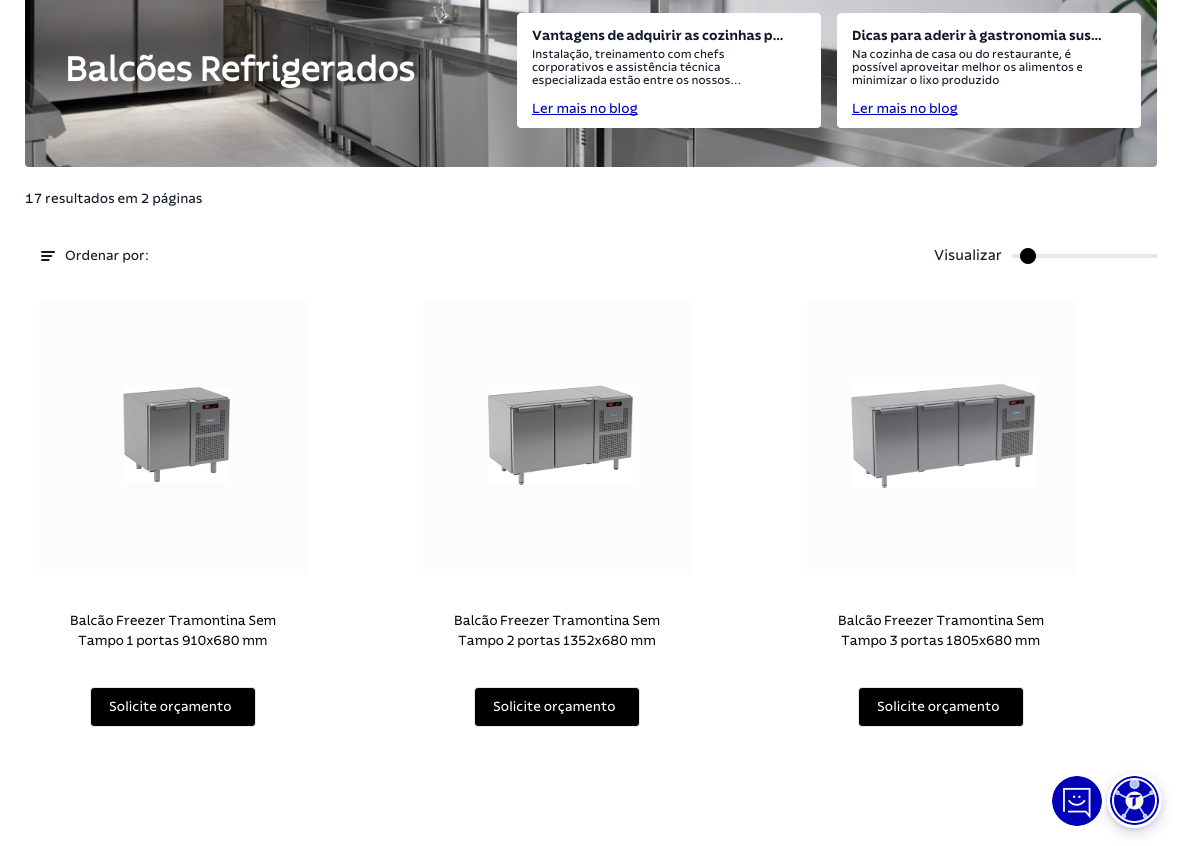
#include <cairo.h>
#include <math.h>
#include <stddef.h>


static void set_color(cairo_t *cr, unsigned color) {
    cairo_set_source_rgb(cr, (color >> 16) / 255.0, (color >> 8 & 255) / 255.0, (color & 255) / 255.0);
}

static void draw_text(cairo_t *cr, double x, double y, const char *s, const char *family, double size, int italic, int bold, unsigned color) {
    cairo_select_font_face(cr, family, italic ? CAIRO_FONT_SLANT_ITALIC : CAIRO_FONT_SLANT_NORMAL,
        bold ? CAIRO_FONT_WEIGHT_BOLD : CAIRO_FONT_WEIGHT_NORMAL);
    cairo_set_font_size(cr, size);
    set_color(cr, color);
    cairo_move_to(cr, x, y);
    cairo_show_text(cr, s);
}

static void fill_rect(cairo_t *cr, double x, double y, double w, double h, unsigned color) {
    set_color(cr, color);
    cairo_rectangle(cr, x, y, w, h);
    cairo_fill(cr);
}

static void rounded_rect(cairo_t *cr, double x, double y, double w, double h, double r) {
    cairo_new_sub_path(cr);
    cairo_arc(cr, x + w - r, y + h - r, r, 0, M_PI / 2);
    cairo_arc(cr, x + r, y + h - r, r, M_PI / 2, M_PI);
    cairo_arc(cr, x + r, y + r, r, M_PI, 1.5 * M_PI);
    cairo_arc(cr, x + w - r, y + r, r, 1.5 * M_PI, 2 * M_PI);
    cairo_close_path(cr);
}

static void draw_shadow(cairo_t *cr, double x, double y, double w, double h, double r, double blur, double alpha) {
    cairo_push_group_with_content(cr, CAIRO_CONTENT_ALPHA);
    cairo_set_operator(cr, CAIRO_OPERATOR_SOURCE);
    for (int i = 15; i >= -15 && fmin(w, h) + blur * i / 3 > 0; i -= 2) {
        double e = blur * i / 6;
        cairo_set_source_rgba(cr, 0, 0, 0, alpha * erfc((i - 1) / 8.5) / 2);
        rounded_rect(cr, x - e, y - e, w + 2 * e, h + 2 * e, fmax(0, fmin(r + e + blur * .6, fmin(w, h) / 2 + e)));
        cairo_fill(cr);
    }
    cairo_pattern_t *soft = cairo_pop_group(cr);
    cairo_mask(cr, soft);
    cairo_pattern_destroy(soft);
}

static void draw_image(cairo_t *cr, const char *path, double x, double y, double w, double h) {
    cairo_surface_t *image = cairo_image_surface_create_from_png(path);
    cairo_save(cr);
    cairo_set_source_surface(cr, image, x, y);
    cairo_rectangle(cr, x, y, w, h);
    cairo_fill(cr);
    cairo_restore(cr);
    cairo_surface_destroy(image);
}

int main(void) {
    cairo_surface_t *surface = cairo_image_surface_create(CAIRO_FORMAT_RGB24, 1182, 846);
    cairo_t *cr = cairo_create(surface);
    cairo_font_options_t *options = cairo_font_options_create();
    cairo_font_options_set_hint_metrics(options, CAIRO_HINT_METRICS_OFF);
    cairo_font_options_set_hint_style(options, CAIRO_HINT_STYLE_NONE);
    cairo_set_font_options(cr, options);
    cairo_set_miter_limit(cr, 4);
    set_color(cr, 0xFFFFFF);
    cairo_paint(cr);
    draw_image(cr, "assets/img1.png", 25, 0, 1132, 167);
    draw_text(cr, 65, 81, "Balcões Refrigerados", "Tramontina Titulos", 36, 0, 1, 0xFFFFFF);
    rounded_rect(cr, 517, 13, 304, 115, 4);
    cairo_fill(cr);
    draw_text(cr, 532, 40, "Vantagens de adquirir as cozinhas p...", "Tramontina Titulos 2", 14, 0, 1, 0x111827);
    draw_text(cr, 532, 58, "Instalação, treinamento com chefs", "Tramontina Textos", 12, 0, 0, 0x111827);
    draw_text(cr, 532, 71, "corporativos e assistência técnica", "Tramontina Textos", 12, 0, 0, 0x111827);
    draw_text(cr, 532, 84, "especializada estão entre os nossos…", "Tramontina Textos", 12, 0, 0, 0x111827);
    fill_rect(cr, 532, 114, 106, 1, 0x0000B7);
    draw_text(cr, 532, 113, "Ler mais no blog", "Tramontina Textos", 14, 0, 0, 0x0000B7);
    set_color(cr, 0xFFFFFF);
    rounded_rect(cr, 837, 13, 304, 115, 4);
    cairo_fill(cr);
    draw_text(cr, 852, 40, "Dicas para aderir à gastronomia sus...", "Tramontina Titulos 2", 14, 0, 1, 0x111827);
    draw_text(cr, 852, 58, "Na cozinha de casa ou do restaurante, é", "Tramontina Textos", 12, 0, 0, 0x111827);
    draw_text(cr, 852, 71, "possível aproveitar melhor os alimentos e", "Tramontina Textos", 12, 0, 0, 0x111827);
    draw_text(cr, 852, 84, "minimizar o lixo produzido", "Tramontina Textos", 12, 0, 0, 0x111827);
    fill_rect(cr, 852, 114, 106, 1, 0x0000B7);
    draw_text(cr, 852, 113, "Ler mais no blog", "Tramontina Textos", 14, 0, 0, 0x0000B7);
    draw_text(cr, 25, 203, "17 resultados em 2 páginas", "Tramontina Textos", 14, 0, 0, 0x111827);
    draw_image(cr, "assets/img2.png", 41, 251, 14, 10);
    draw_text(cr, 65, 260, "Ordenar por:", "Tramontina Textos", 14, 0, 0, 0x1A1A1A);
    draw_text(cr, 934, 260, "Visualizar", "Tramontina Textos", 15, 0, 0, 0x111827);
    fill_rect(cr, 1012, 254, 145, 4, 0xE6E6E6);
    set_color(cr, 0x000000);
    cairo_new_path(cr);
    cairo_arc(cr, 1028, 256, 8, 0, 2 * M_PI);
    cairo_fill(cr);
    fill_rect(cr, 39, 302, 268, 273, 0xFCFCFC);
    draw_image(cr, "assets/img3.png", 123, 387, 107, 95);
    draw_text(cr, 70, 625, "Balcão Freezer Tramontina Sem", "Tramontina Titulos", 14, 0, 0, 0x000000);
    draw_text(cr, 78, 645, "Tampo 1 portas 910x680 mm", "Tramontina Titulos", 14, 0, 0, 0x000000);
    rounded_rect(cr, 90.5, 687.5, 165, 39, 3.5);
    cairo_fill_preserve(cr);
    set_color(cr, 0xE5E5E5);
    cairo_set_line_width(cr, 1);
    cairo_stroke(cr);
    draw_text(cr, 109, 711, "Solicite orçamento", "Tramontina Textos", 14, 0, 0, 0xFFFFFF);
    fill_rect(cr, 423, 302, 268, 273, 0xFCFCFC);
    draw_image(cr, "assets/img4.png", 488, 385, 145, 100);
    draw_text(cr, 454, 625, "Balcão Freezer Tramontina Sem", "Tramontina Titulos", 14, 0, 0, 0x000000);
    draw_text(cr, 458, 645, "Tampo 2 portas 1352x680 mm", "Tramontina Titulos", 14, 0, 0, 0x000000);
    rounded_rect(cr, 474.5, 687.5, 165, 39, 3.5);
    cairo_fill_preserve(cr);
    set_color(cr, 0xE5E5E5);
    cairo_stroke(cr);
    draw_text(cr, 493, 711, "Solicite orçamento", "Tramontina Textos", 14, 0, 0, 0xFFFFFF);
    fill_rect(cr, 807, 302, 268, 273, 0xFCFCFC);
    draw_image(cr, "assets/img5.png", 851, 383, 185, 105);
    draw_text(cr, 838, 625, "Balcão Freezer Tramontina Sem", "Tramontina Titulos", 14, 0, 0, 0x000000);
    draw_text(cr, 841, 645, "Tampo 3 portas 1805x680 mm", "Tramontina Titulos", 14, 0, 0, 0x000000);
    rounded_rect(cr, 858.5, 687.5, 165, 39, 3.5);
    cairo_fill_preserve(cr);
    set_color(cr, 0xE5E5E5);
    cairo_stroke(cr);
    draw_text(cr, 877, 711, "Solicite orçamento", "Tramontina Textos", 14, 0, 0, 0xFFFFFF);
    set_color(cr, 0x5D6494);
    draw_shadow(cr, 1107, 775, 55, 55, 27.5, 2, 0.2);
    set_color(cr, 0x252C61);
    draw_shadow(cr, 1107, 778, 55, 55, 27.5, 7.5, 0.15);
    draw_image(cr, "assets/img6.png", 1052, 776, 50, 50);
    cairo_arc(cr, 1077, 801, 26.5, 0, 2 * M_PI);
    set_color(cr, 0xFFFFFF);
    cairo_set_line_width(cr, 3);
    cairo_stroke(cr);
    draw_image(cr, "assets/img7.png", 1110, 776, 49, 49);
    cairo_arc(cr, 1134.5, 800.5, 26, 0, 2 * M_PI);
    cairo_stroke(cr);
    cairo_surface_write_to_png(surface, "output.png");
    cairo_font_options_destroy(options);
    cairo_destroy(cr);
    cairo_surface_destroy(surface);
    return 0;
}
